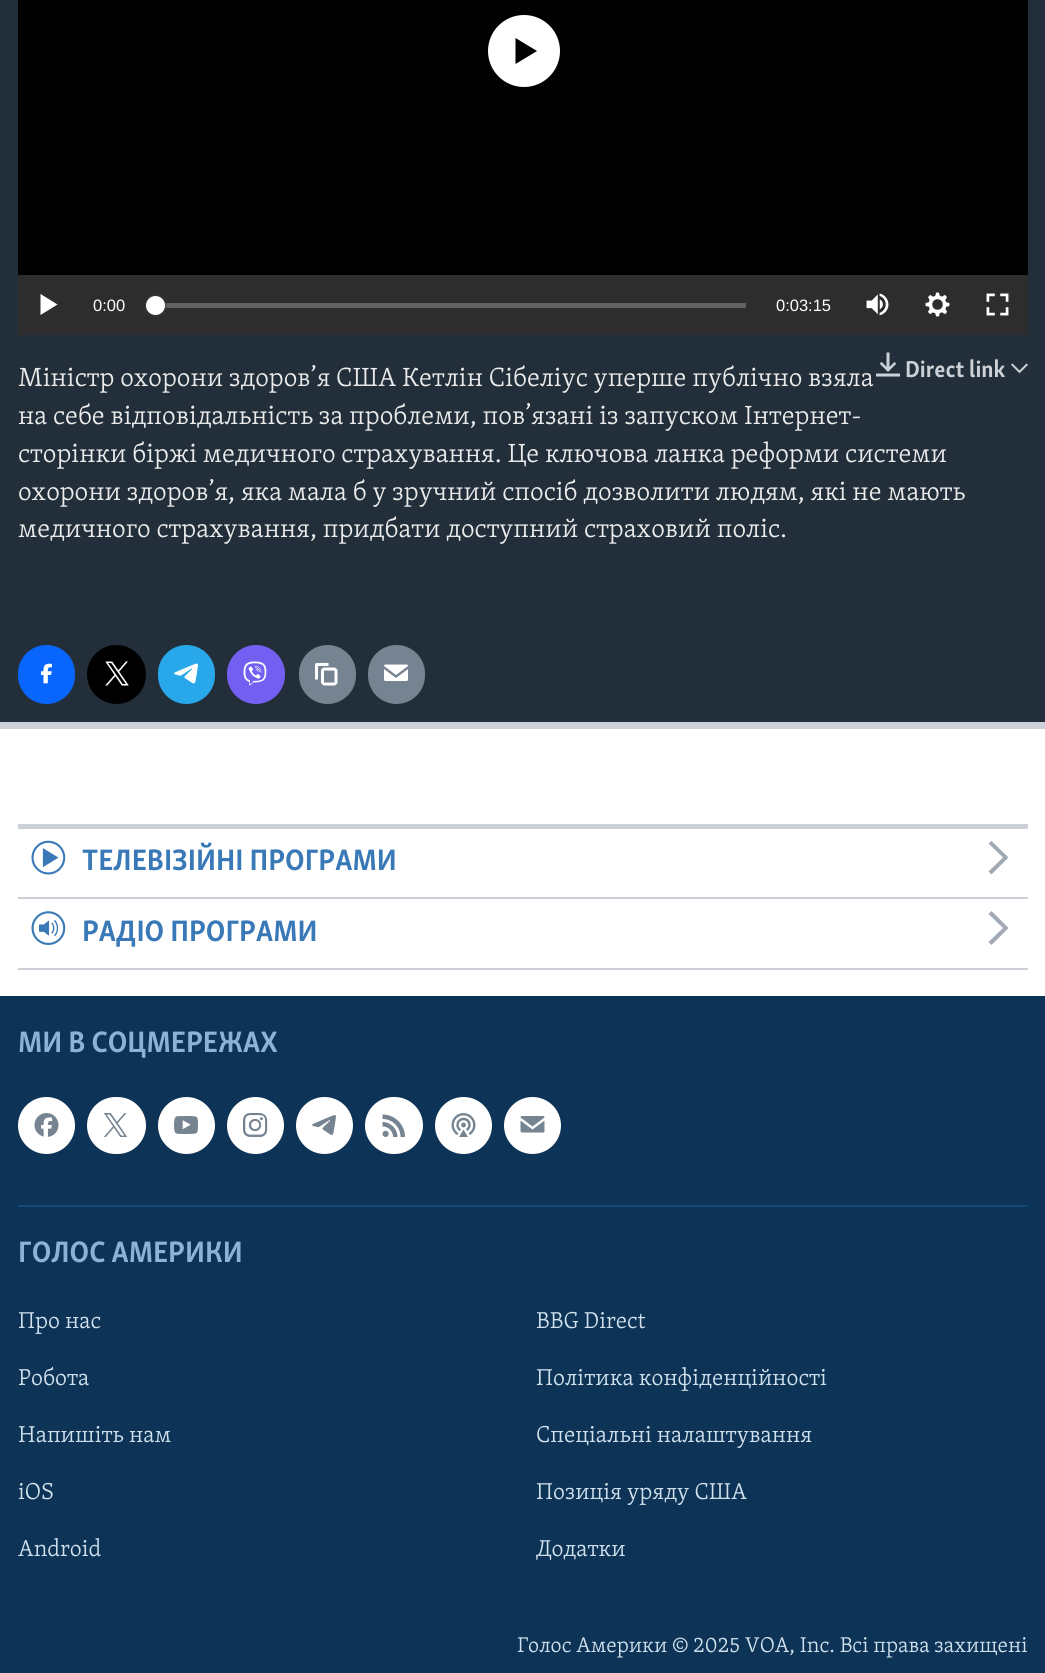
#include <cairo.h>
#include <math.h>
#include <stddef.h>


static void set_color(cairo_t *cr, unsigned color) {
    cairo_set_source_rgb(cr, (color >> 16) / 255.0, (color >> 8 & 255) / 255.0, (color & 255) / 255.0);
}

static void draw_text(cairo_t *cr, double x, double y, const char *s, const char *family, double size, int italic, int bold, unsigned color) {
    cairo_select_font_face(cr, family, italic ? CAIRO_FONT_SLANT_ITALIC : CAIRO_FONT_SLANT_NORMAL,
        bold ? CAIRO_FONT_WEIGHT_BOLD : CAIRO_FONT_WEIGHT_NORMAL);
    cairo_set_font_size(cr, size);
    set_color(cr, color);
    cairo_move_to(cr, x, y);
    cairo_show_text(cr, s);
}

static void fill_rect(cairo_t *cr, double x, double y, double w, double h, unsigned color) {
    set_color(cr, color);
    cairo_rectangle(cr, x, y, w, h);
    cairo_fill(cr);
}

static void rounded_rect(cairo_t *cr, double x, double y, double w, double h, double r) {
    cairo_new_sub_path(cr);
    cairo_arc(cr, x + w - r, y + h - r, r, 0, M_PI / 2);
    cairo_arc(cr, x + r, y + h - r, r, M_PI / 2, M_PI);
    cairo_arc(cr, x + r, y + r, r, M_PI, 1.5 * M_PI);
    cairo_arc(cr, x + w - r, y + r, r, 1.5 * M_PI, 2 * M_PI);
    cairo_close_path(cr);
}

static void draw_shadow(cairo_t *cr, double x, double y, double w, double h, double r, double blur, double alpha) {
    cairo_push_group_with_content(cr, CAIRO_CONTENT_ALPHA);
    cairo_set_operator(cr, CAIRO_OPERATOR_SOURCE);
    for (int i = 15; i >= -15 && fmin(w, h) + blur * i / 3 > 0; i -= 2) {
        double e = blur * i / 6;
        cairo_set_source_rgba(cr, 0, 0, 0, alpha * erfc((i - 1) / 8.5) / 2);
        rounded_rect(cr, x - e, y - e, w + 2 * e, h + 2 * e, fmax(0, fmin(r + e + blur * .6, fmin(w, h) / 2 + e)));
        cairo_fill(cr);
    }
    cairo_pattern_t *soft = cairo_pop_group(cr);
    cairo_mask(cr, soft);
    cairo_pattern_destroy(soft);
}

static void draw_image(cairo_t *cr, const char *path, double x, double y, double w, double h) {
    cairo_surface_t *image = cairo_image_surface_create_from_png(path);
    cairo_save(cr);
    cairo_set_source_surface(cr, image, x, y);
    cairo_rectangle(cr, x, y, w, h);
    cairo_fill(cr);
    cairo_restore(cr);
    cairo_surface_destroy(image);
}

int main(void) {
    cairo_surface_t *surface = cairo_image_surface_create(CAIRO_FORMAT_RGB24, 1045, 1673);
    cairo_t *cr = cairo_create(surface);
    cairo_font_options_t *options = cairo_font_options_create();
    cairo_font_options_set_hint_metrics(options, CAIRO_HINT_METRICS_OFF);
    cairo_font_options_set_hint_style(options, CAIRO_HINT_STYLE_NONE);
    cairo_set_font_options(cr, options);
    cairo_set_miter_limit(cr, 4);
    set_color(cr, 0xFFFFFF);
    cairo_paint(cr);
    fill_rect(cr, 0, 0, 1045, 722, 0x222F3A);
    fill_rect(cr, 0, 722, 1045, 7, 0xCBD1D6);
    fill_rect(cr, 18, 0, 1010, 275, 0x000000);
    set_color(cr, 0xFFFFFF);
    cairo_arc(cr, 524, 51, 36, 0, 2 * M_PI);
    cairo_fill(cr);
    set_color(cr, 0x000000);
    cairo_new_path(cr);
    cairo_move_to(cr, 515.5, 64);
    cairo_line_to(cr, 537, 51);
    cairo_line_to(cr, 515.5, 38);
    cairo_close_path(cr);
    cairo_fill(cr);
    fill_rect(cr, 18, 275, 1010, 60, 0x2D2D2D);
    set_color(cr, 0xFFFFFF);
    cairo_new_path(cr);
    cairo_move_to(cr, 40.5, 315);
    cairo_line_to(cr, 57.5, 304.5);
    cairo_line_to(cr, 40.5, 294);
    cairo_close_path(cr);
    cairo_fill(cr);
    draw_text(cr, 93, 311, "0:00", "Liberation Sans", 16.5, 0, 0, 0xFFFFFF);
    fill_rect(cr, 164, 303, 582, 5, 0x626262);
    set_color(cr, 0x414144);
    draw_shadow(cr, 146, 296, 19, 19, 9.5, 2, 1);
    set_color(cr, 0xFFFFFF);
    cairo_arc(cr, 155.5, 305.5, 9.5, 0, 2 * M_PI);
    cairo_fill(cr);
    draw_text(cr, 776, 311, "0:03:15", "Liberation Sans", 16.5, 0, 0, 0xFFFFFF);
    draw_image(cr, "assets/img1.png", 866, 293, 23, 23);
    draw_image(cr, "assets/img2.png", 925, 292, 25, 25);
    draw_image(cr, "assets/img3.png", 986, 293, 23, 23);
    draw_image(cr, "assets/img4.png", 876, 352, 24, 25);
    draw_text(cr, 905, 377, "Direct link", "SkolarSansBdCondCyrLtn", 23.6, 0, 1, 0xCBD1D6);
    draw_image(cr, "assets/img5.png", 1011, 363, 17, 11);
    draw_text(cr, 18, 386, "Міністр охорони здоров’я США Кетлін Сібеліус уперше публічно взяла", "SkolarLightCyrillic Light", 27, 0, 0, 0xEBEBEB);
    draw_text(cr, 18, 424, "на себе відповідальність за проблеми, пов’язані із запуском Інтернет-", "SkolarLightCyrillic Light", 27, 0, 0, 0xEBEBEB);
    draw_text(cr, 18, 462, "сторінки біржі медичного страхування. Це ключова ланка реформи системи", "SkolarLightCyrillic Light", 27, 0, 0, 0xEBEBEB);
    draw_text(cr, 18, 500, "охорони здоров’я, яка мала б у зручний спосіб дозволити людям, які не мають", "SkolarLightCyrillic Light", 27, 0, 0, 0xEBEBEB);
    draw_text(cr, 18, 537, "медичного страхування, придбати доступний страховий поліс.", "SkolarLightCyrillic Light", 27, 0, 0, 0xEBEBEB);
    set_color(cr, 0x0866FF);
    rounded_rect(cr, 18, 645, 57, 59, 28.5);
    cairo_fill(cr);
    draw_image(cr, "assets/img6.png", 41, 663, 11, 21);
    set_color(cr, 0x000000);
    cairo_arc(cr, 116.5, 674.5, 29.5, 0, 2 * M_PI);
    cairo_fill(cr);
    draw_image(cr, "assets/img7.png", 105, 661, 24, 25);
    set_color(cr, 0x28A8EA);
    rounded_rect(cr, 158, 645, 57, 59, 28.5);
    cairo_fill(cr);
    draw_image(cr, "assets/img8.png", 174, 663, 24, 21);
    set_color(cr, 0x7360F2);
    rounded_rect(cr, 227, 645, 58, 59, 29);
    cairo_fill(cr);
    draw_image(cr, "assets/img9.png", 243, 661, 24, 25);
    set_color(cr, 0x768492);
    rounded_rect(cr, 299, 645, 57, 59, 28.5);
    cairo_fill(cr);
    draw_image(cr, "assets/img10.png", 315, 663, 23, 23);
    rounded_rect(cr, 368, 645, 57, 59, 28.5);
    cairo_fill(cr);
    draw_image(cr, "assets/img11.png", 384, 664, 24, 17);
    fill_rect(cr, 18, 824, 1010, 5, 0xCBD1D6);
    fill_rect(cr, 18, 897, 1010, 2, 0xCBD1D6);
    draw_image(cr, "assets/img12.png", 31, 840, 35, 35);
    draw_text(cr, 82, 870, "ТЕЛЕВІЗІЙНІ ПРОГРАМИ", "SkolarSansBdCondCyrLtn", 30.4, 0, 1, 0x3A79B7);
    set_color(cr, 0xA1AAB4);
    cairo_new_path(cr);
    cairo_move_to(cr, 991.5, 874.5);
    cairo_line_to(cr, 1008.5, 857.5);
    cairo_line_to(cr, 991.5, 841);
    cairo_line_to(cr, 988.5, 843.5);
    cairo_line_to(cr, 1003, 857.5);
    cairo_line_to(cr, 988.5, 871.5);
    cairo_close_path(cr);
    cairo_fill(cr);
    fill_rect(cr, 18, 968, 1010, 2, 0xCBD1D6);
    draw_image(cr, "assets/img13.png", 31, 911, 35, 34);
    draw_text(cr, 82, 941, "РАДІО ПРОГРАМИ", "SkolarSansBdCondCyrLtn", 30.4, 0, 1, 0x3A79B7);
    set_color(cr, 0xA1AAB4);
    cairo_new_path(cr);
    cairo_move_to(cr, 991.5, 945);
    cairo_line_to(cr, 1008.5, 928);
    cairo_line_to(cr, 991.5, 911);
    cairo_line_to(cr, 988.5, 914);
    cairo_line_to(cr, 1003, 928);
    cairo_line_to(cr, 988.5, 942);
    cairo_close_path(cr);
    cairo_fill(cr);
    fill_rect(cr, 0, 996, 1045, 677, 0x0D3456);
    draw_text(cr, 18, 1052, "МИ В СОЦМЕРЕЖАХ", "SkolarSansBdCondCyrLtn", 30.4, 0, 1, 0x8DB3D4);
    set_color(cr, 0xFFFFFF);
    cairo_new_path(cr);
    cairo_arc(cr, 46.5, 1125.5, 28.5, 0, 2 * M_PI);
    cairo_fill(cr);
    draw_image(cr, "assets/img14.png", 34, 1113, 25, 24);
    rounded_rect(cr, 87, 1097, 59, 57, 28.5);
    cairo_fill(cr);
    draw_image(cr, "assets/img15.png", 103, 1113, 25, 24);
    cairo_arc(cr, 186.5, 1125.5, 28.5, 0, 2 * M_PI);
    cairo_fill(cr);
    draw_image(cr, "assets/img16.png", 174, 1116, 24, 18);
    cairo_arc(cr, 255.5, 1125.5, 28.5, 0, 2 * M_PI);
    cairo_fill(cr);
    draw_image(cr, "assets/img17.png", 243, 1113, 25, 24);
    cairo_arc(cr, 324.5, 1125.5, 28.5, 0, 2 * M_PI);
    cairo_fill(cr);
    draw_image(cr, "assets/img18.png", 312, 1115, 24, 20);
    rounded_rect(cr, 365, 1097, 58, 57, 28.5);
    cairo_fill(cr);
    draw_image(cr, "assets/img19.png", 382, 1114, 23, 23);
    cairo_arc(cr, 463.5, 1125.5, 28.5, 0, 2 * M_PI);
    cairo_fill(cr);
    draw_image(cr, "assets/img20.png", 451, 1113, 25, 24);
    cairo_arc(cr, 532.5, 1125.5, 28.5, 0, 2 * M_PI);
    cairo_fill(cr);
    draw_image(cr, "assets/img21.png", 520, 1116, 25, 17);
    fill_rect(cr, 18, 1205, 1010, 2, 0x134976);
    draw_text(cr, 18, 1262, "ГОЛОС АМЕРИКИ", "SkolarSansBdCondCyrLtn", 30.4, 0, 1, 0x8DB3D4);
    draw_text(cr, 18, 1328, "Про нас", "SkolarLightCyrillic Light", 23.6, 0, 0, 0xD1E1EE);
    draw_text(cr, 536, 1328, "BBG Direct", "SkolarLightCyrillic Light", 23.6, 0, 0, 0xD1E1EE);
    draw_text(cr, 18, 1385, "Робота", "SkolarLightCyrillic Light", 23.6, 0, 0, 0xD1E1EE);
    draw_text(cr, 536, 1385, "Політика конфіденційності", "SkolarLightCyrillic Light", 23.6, 0, 0, 0xD1E1EE);
    draw_text(cr, 18, 1442, "Напишіть нам", "SkolarLightCyrillic Light", 23.6, 0, 0, 0xD1E1EE);
    draw_text(cr, 536, 1442, "Спеціальні налаштування", "SkolarLightCyrillic Light", 23.6, 0, 0, 0xD1E1EE);
    draw_text(cr, 18, 1499, "iOS", "SkolarLightCyrillic Light", 23.6, 0, 0, 0xD1E1EE);
    draw_text(cr, 536, 1499, "Позиція уряду США", "SkolarLightCyrillic Light", 23.6, 0, 0, 0xD1E1EE);
    draw_text(cr, 18, 1556, "Android", "SkolarLightCyrillic Light", 23.6, 0, 0, 0xD1E1EE);
    draw_text(cr, 536, 1556, "Додатки", "SkolarLightCyrillic Light", 23.6, 0, 0, 0xD1E1EE);
    draw_text(cr, 517, 1652, "Голос Америки © 2025 VOA, Inc. Всі права захищені", "SkolarLightCyrillic Light", 21.9, 0, 0, 0xD1E1EE);
    cairo_surface_write_to_png(surface, "output.png");
    cairo_font_options_destroy(options);
    cairo_destroy(cr);
    cairo_surface_destroy(surface);
    return 0;
}
